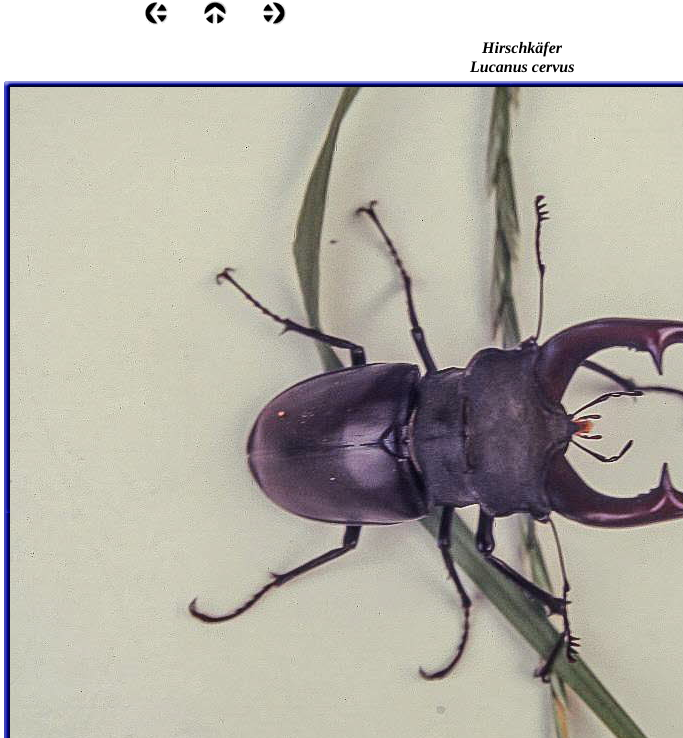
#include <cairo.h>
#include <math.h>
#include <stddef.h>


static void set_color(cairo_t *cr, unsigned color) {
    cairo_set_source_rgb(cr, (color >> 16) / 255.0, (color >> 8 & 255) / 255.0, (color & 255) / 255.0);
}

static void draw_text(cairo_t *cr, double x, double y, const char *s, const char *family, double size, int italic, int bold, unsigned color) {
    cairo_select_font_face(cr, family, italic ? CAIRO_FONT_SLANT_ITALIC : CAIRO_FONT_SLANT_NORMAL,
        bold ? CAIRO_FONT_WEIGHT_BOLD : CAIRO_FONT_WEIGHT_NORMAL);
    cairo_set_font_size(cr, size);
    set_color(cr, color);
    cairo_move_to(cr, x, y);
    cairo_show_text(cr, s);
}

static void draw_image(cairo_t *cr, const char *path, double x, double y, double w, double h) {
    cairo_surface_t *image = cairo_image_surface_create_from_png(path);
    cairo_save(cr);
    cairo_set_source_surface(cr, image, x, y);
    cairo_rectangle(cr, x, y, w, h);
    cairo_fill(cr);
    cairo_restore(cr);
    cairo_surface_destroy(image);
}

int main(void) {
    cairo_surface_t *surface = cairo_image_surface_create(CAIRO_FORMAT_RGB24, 683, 738);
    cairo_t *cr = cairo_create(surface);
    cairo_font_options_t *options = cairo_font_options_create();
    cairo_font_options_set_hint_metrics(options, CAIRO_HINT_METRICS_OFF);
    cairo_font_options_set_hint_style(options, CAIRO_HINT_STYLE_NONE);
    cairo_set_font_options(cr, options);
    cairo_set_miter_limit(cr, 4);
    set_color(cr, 0xFFFFFF);
    cairo_paint(cr);
    draw_image(cr, "assets/img1.png", 145, 2, 23, 23);
    draw_image(cr, "assets/img2.png", 204, 1, 23, 23);
    draw_image(cr, "assets/img3.png", 263, 2, 23, 23);
    draw_text(cr, 482, 53, "Hirschkäfer", "Liberation Serif", 16, 1, 1, 0x000000);
    draw_text(cr, 470, 72, "Lucanus cervus", "Liberation Serif", 16, 1, 1, 0x000000);
    draw_image(cr, "assets/img4.png", 4, 81, 6, 6);
    draw_image(cr, "assets/img5.png", 10, 81, 673, 6);
    draw_image(cr, "assets/img6.png", 4, 87, 6, 651);
    draw_image(cr, "assets/img7.png", 10, 87, 673, 651);
    cairo_surface_write_to_png(surface, "output.png");
    cairo_font_options_destroy(options);
    cairo_destroy(cr);
    cairo_surface_destroy(surface);
    return 0;
}
